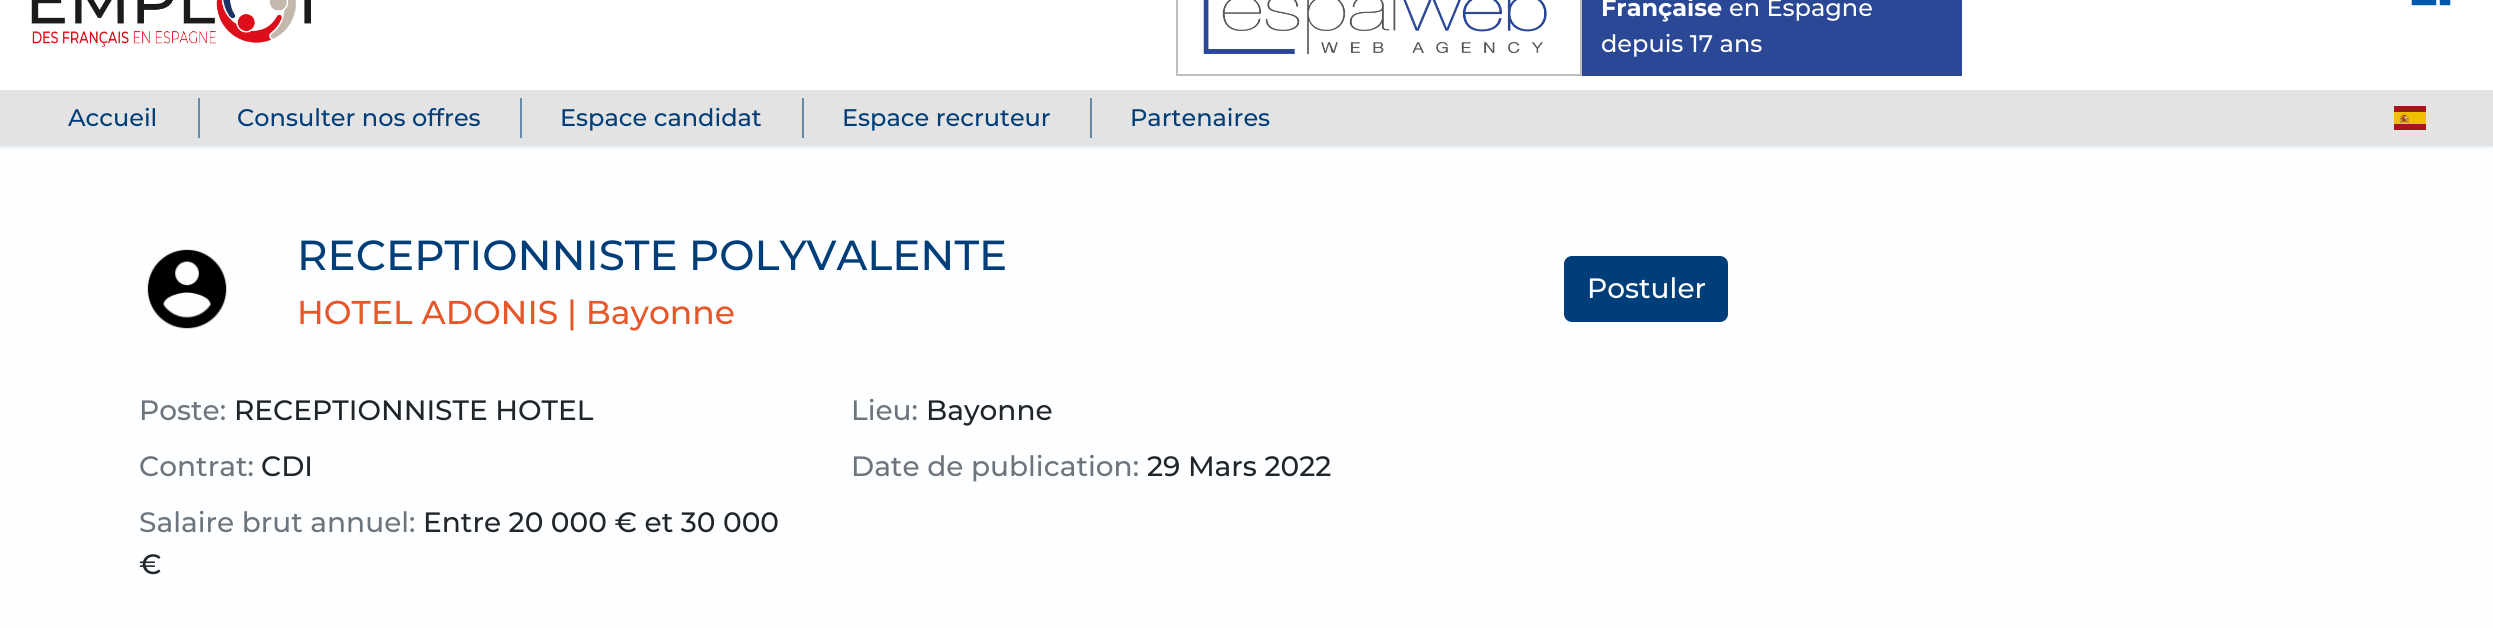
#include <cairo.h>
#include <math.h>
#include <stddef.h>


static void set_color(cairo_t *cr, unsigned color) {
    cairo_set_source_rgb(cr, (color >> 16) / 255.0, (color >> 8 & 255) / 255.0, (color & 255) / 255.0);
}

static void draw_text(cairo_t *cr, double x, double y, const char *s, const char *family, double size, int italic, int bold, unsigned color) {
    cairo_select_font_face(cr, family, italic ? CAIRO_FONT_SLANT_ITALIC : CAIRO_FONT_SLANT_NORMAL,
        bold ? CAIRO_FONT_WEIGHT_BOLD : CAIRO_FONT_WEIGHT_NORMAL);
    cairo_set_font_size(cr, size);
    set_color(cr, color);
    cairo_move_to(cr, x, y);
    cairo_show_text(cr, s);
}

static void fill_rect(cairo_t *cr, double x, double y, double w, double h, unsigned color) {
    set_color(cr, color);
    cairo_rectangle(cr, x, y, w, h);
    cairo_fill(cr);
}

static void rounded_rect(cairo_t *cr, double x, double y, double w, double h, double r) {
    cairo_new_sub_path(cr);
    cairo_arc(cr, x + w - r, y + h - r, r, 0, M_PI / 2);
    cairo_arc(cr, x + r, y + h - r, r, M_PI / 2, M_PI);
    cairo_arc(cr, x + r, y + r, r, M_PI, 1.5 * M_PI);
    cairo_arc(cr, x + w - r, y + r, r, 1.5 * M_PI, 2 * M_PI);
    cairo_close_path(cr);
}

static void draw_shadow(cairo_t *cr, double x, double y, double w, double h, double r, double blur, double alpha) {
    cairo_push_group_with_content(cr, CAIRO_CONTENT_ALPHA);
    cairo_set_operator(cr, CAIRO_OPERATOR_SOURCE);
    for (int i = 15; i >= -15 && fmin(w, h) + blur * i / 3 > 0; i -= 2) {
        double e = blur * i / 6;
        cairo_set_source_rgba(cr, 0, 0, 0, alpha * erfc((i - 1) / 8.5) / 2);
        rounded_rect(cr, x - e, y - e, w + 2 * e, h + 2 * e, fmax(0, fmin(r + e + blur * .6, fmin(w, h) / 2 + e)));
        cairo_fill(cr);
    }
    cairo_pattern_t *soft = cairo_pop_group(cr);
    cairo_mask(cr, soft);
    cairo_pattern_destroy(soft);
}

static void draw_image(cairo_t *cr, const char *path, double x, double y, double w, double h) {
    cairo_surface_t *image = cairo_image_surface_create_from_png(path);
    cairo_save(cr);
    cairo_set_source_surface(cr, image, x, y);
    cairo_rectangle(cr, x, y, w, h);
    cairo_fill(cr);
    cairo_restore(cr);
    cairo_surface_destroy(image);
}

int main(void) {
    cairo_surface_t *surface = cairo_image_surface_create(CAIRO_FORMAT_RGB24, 2493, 628);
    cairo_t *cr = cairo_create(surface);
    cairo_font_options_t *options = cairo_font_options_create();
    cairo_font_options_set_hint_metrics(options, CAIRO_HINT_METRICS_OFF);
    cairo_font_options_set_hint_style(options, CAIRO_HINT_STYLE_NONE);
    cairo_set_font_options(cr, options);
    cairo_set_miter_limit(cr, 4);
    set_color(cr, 0xFDFEFF);
    cairo_paint(cr);
    set_color(cr, 0x003E7A);
    draw_shadow(cr, 0, -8, 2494, 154, 0, 2.5, 0.15);
    fill_rect(cr, 0, 0, 2493, 90, 0xFFFFFF);
    draw_image(cr, "assets/img1.png", 31, 0, 280, 47);
    cairo_rectangle(cr, 1177, -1, 404, 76);
    set_color(cr, 0xC0BFBF);
    cairo_stroke(cr);
    draw_image(cr, "assets/img2.png", 1203, 0, 344, 54);
    fill_rect(cr, 1582, 0, 380, 76, 0x2A4895);
    draw_text(cr, 1601, 16, "Française", "Montserrat", 24, 0, 1, 0xFFFFFF);
    draw_text(cr, 1729, 16, "en Espagne", "Montserrat Medium", 24, 0, 0, 0xFFFFFF);
    draw_text(cr, 1601, 52, "depuis 17 ans", "Montserrat Medium", 24, 0, 0, 0xFFFFFF);
    draw_image(cr, "assets/img3.png", 2411, 0, 40, 6);
    fill_rect(cr, 0, 90, 2493, 56, 0xE3E3E3);
    draw_text(cr, 68, 126, "Accueil", "Montserrat Medium", 24, 0, 0, 0x003E7A);
    fill_rect(cr, 198, 98, 2, 40, 0x688AAA);
    draw_text(cr, 237, 126, "Consulter nos offres", "Montserrat Medium", 24, 0, 0, 0x003E7A);
    fill_rect(cr, 520, 98, 2, 40, 0x688AAA);
    draw_text(cr, 560, 126, "Espace candidat", "Montserrat Medium", 24, 0, 0, 0x003E7A);
    fill_rect(cr, 802, 98, 2, 40, 0x688AAA);
    draw_text(cr, 842, 126, "Espace recruteur", "Montserrat Medium", 24, 0, 0, 0x003E7A);
    fill_rect(cr, 1090, 98, 2, 40, 0x688AAA);
    draw_text(cr, 1130, 126, "Partenaires", "Montserrat Medium", 24, 0, 0, 0x003E7A);
    draw_image(cr, "assets/img4.png", 2394, 106, 32, 24);
    draw_image(cr, "assets/img5.png", 147, 249, 80, 80);
    draw_text(cr, 297, 270, "RECEPTIONNISTE POLYVALENTE", "Montserrat Medium", 42, 0, 0, 0x003E7A);
    draw_text(cr, 297, 324, "HOTEL ADONIS | Bayonne", "Montserrat Medium", 33, 0, 0, 0xE65829);
    set_color(cr, 0x003E7A);
    rounded_rect(cr, 1565, 257, 162, 64, 7);
    cairo_fill_preserve(cr);
    cairo_stroke(cr);
    draw_text(cr, 1587, 298, "Postuler", "Montserrat Medium", 28, 0, 0, 0xFFFFFF);
    draw_text(cr, 139, 420, "Poste:", "Montserrat Medium", 28, 0, 0, 0x6C757D);
    draw_text(cr, 234, 420, "RECEPTIONNISTE HOTEL", "Montserrat Medium", 28, 0, 0, 0x212529);
    draw_text(cr, 851, 420, "Lieu:", "Montserrat Medium", 28, 0, 0, 0x6C757D);
    draw_text(cr, 926, 420, "Bayonne", "Montserrat Medium", 28, 0, 0, 0x212529);
    draw_text(cr, 139, 476, "Contrat:", "Montserrat Medium", 28, 0, 0, 0x6C757D);
    draw_text(cr, 261, 476, "CDI", "Montserrat Medium", 28, 0, 0, 0x212529);
    draw_text(cr, 851, 476, "Date de publication:", "Montserrat Medium", 28, 0, 0, 0x6C757D);
    draw_text(cr, 1147, 476, "29 Mars 2022", "Montserrat Medium", 28, 0, 0, 0x212529);
    draw_text(cr, 139, 532, "Salaire brut annuel:", "Montserrat Medium", 28, 0, 0, 0x6C757D);
    draw_text(cr, 423, 532, "Entre 20 000 € et 30 000", "Montserrat Medium", 28, 0, 0, 0x212529);
    draw_text(cr, 139, 574, "€", "Montserrat Medium", 28, 0, 0, 0x212529);
    cairo_surface_write_to_png(surface, "output.png");
    cairo_font_options_destroy(options);
    cairo_destroy(cr);
    cairo_surface_destroy(surface);
    return 0;
}
